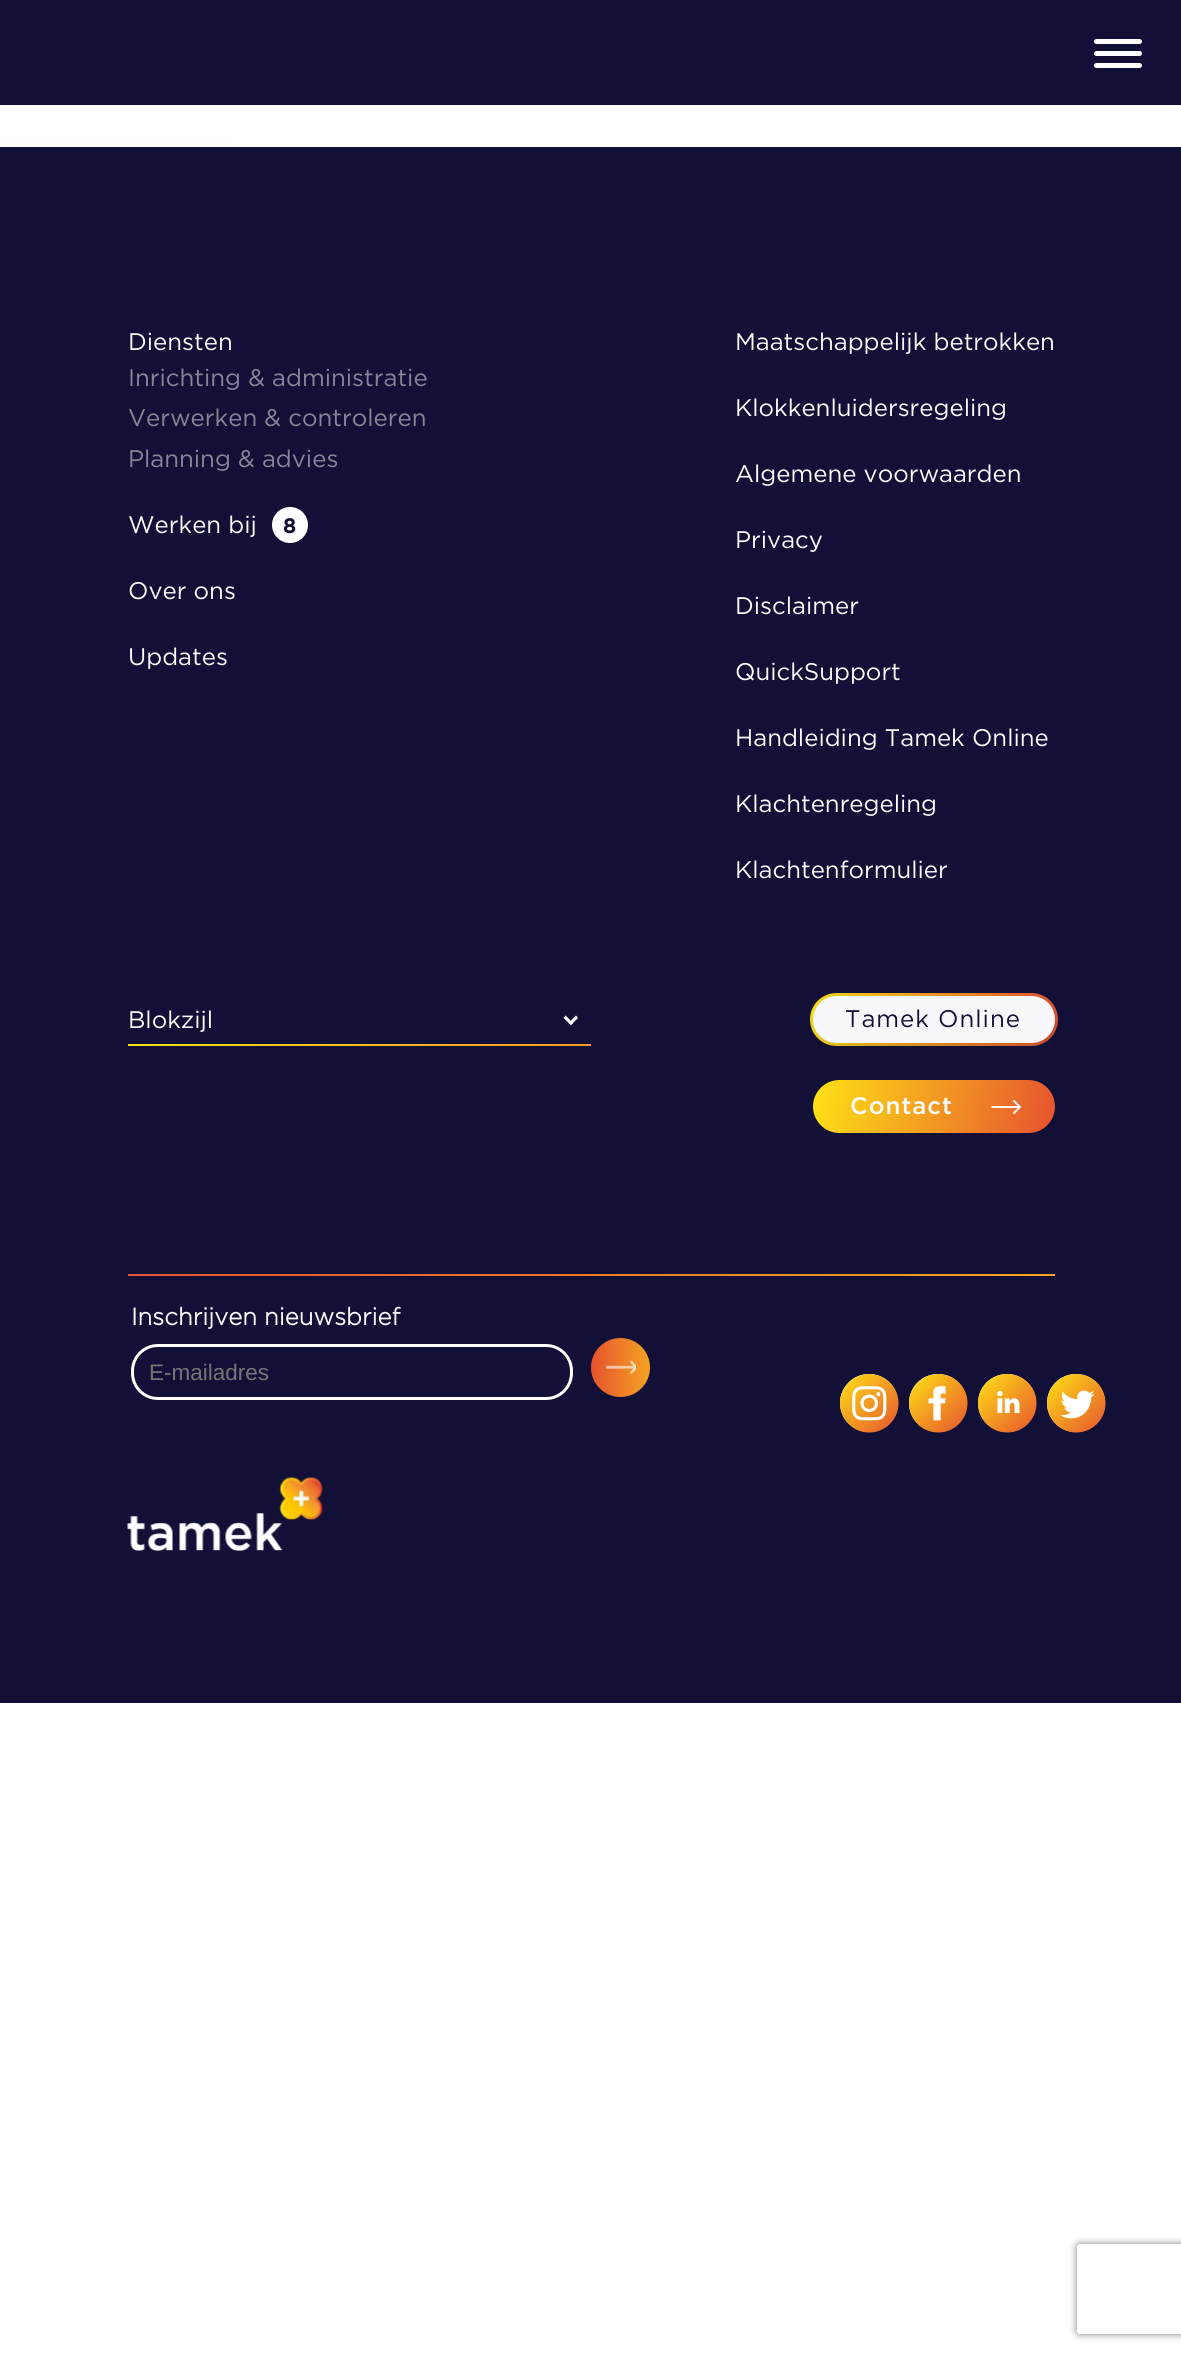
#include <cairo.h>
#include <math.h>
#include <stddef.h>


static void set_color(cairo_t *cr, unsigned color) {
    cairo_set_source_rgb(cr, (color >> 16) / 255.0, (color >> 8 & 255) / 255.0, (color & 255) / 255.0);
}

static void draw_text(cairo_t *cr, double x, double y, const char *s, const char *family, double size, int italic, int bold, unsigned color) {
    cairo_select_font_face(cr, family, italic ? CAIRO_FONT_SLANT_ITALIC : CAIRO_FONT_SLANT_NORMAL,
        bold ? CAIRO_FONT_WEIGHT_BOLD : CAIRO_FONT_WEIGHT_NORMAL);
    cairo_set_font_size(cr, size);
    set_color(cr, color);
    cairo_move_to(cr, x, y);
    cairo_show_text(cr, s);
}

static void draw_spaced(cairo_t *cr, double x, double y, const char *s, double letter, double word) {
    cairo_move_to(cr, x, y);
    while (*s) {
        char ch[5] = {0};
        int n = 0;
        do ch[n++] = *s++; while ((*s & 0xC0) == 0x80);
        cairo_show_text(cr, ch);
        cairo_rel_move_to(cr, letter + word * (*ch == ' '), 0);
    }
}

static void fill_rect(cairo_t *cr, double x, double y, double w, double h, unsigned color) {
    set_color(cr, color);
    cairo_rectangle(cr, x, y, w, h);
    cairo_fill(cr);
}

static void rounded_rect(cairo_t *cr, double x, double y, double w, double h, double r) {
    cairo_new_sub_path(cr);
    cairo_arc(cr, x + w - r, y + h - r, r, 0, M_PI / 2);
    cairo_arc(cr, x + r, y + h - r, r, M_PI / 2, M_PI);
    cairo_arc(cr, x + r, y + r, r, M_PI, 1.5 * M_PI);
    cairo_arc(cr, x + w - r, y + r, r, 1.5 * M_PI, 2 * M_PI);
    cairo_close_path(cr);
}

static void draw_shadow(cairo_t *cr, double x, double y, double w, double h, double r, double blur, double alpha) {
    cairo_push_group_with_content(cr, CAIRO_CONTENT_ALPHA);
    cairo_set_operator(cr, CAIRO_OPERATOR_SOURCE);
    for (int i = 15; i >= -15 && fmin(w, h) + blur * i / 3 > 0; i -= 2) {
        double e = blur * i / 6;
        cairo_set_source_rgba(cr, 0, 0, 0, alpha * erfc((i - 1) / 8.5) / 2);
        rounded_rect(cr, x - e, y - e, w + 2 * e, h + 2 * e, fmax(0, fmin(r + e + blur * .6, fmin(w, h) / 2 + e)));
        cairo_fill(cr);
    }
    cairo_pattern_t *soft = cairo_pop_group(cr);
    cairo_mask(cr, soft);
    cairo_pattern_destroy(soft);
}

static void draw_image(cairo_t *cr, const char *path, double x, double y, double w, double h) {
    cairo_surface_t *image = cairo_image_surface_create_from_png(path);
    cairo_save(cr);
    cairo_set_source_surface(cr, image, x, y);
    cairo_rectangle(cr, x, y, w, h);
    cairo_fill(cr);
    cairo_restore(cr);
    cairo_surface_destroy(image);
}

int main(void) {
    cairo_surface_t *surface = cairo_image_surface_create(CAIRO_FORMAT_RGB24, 1181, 2354);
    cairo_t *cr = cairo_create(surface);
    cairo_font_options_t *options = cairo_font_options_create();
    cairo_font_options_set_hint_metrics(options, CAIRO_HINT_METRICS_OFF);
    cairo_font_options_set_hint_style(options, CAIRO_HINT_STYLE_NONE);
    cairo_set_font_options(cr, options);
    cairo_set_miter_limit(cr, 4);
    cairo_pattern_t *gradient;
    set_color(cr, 0xFFFFFF);
    cairo_paint(cr);
    fill_rect(cr, 0, 0, 1181, 105, 0x121036);
    set_color(cr, 0xFFFFFF);
    rounded_rect(cr, 1094, 51, 48, 5, 2.5);
    cairo_fill(cr);
    rounded_rect(cr, 1094, 39, 48, 5, 2.5);
    cairo_fill(cr);
    rounded_rect(cr, 1094, 63, 48, 5, 2.5);
    cairo_fill(cr);
    fill_rect(cr, 0, 107, 209, 2, 0xFCFCFC);
    fill_rect(cr, 0, 140, 231, 2, 0xFCFCFC);
    fill_rect(cr, 0, 147, 1181, 1556, 0x121036);
    draw_text(cr, 128, 350, "Diensten", "Gotham", 24, 0, 0, 0xFCFCFC);
    draw_text(cr, 128, 386, "Inrichting & administratie", "Gotham", 24, 0, 0, 0x878699);
    draw_text(cr, 128, 426, "Verwerken & controleren", "Gotham", 24, 0, 0, 0x878699);
    draw_text(cr, 128, 467, "Planning & advies", "Gotham", 24, 0, 0, 0x878699);
    draw_text(cr, 128, 533, "Werken bij", "Gotham", 24, 0, 0, 0xFCFCFC);
    set_color(cr, 0xFFFFFF);
    cairo_new_path(cr);
    cairo_arc(cr, 290, 525, 18, 0, 2 * M_PI);
    cairo_fill(cr);
    draw_text(cr, 283, 533, "8", "Gotham", 21, 0, 1, 0x121036);
    draw_text(cr, 128, 599, "Over ons", "Gotham", 24, 0, 0, 0xFCFCFC);
    draw_text(cr, 128, 665, "Updates", "Gotham", 24, 0, 0, 0xFCFCFC);
    draw_text(cr, 735, 350, "Maatschappelijk betrokken", "Gotham", 24, 0, 0, 0xFCFCFC);
    draw_text(cr, 735, 416, "Klokkenluidersregeling", "Gotham", 24, 0, 0, 0xFCFCFC);
    draw_text(cr, 735, 482, "Algemene voorwaarden", "Gotham", 24, 0, 0, 0xFCFCFC);
    draw_text(cr, 735, 548, "Privacy", "Gotham", 24, 0, 0, 0xFCFCFC);
    draw_text(cr, 735, 614, "Disclaimer", "Gotham", 24, 0, 0, 0xFCFCFC);
    draw_text(cr, 735, 680, "QuickSupport", "Gotham", 24, 0, 0, 0xFCFCFC);
    draw_text(cr, 735, 746, "Handleiding Tamek Online", "Gotham", 24, 0, 0, 0xFCFCFC);
    draw_text(cr, 735, 812, "Klachtenregeling", "Gotham", 24, 0, 0, 0xFCFCFC);
    draw_text(cr, 735, 878, "Klachtenformulier", "Gotham", 24, 0, 0, 0xFCFCFC);
    draw_text(cr, 128, 1028, "Blokzijl", "Gotham", 24, 0, 0, 0xFCFCFC);
    set_color(cr, 0xFFFFFF);
    cairo_new_path(cr);
    cairo_move_to(cr, 576, 1015.5);
    cairo_line_to(cr, 578, 1018);
    cairo_line_to(cr, 571, 1025);
    cairo_line_to(cr, 568.5, 1023);
    cairo_close_path(cr);
    cairo_fill(cr);
    cairo_new_path(cr);
    cairo_move_to(cr, 565.5, 1015.5);
    cairo_line_to(cr, 573, 1023);
    cairo_line_to(cr, 571, 1025);
    cairo_line_to(cr, 563.5, 1018);
    cairo_close_path(cr);
    cairo_fill(cr);
    gradient = cairo_pattern_create_linear(128, 1045, 591, 1045);
    cairo_pattern_add_color_stop_rgba(gradient, 0, 1, 0.886, 0.086, 1);
    cairo_pattern_add_color_stop_rgba(gradient, 1, 0.949, 0.596, 0.137, 1);
    cairo_set_source(cr, gradient);
    cairo_pattern_destroy(gradient);
    cairo_rectangle(cr, 128, 1044, 463, 2);
    cairo_fill(cr);
    gradient = cairo_pattern_create_linear(1059, 1035, 809, 1004);
    cairo_pattern_add_color_stop_rgba(gradient, 0, 0.902, 0.322, 0.184, 1);
    cairo_pattern_add_color_stop_rgba(gradient, 1, 1, 0.886, 0.086, 1);
    cairo_set_source(cr, gradient);
    cairo_pattern_destroy(gradient);
    rounded_rect(cr, 810, 993, 248, 53, 26.5);
    cairo_fill(cr);
    set_color(cr, 0x121036);
    draw_shadow(cr, 821, 1010, 241, 46, 23, 26, 0.2);
    set_color(cr, 0xF8F7FC);
    rounded_rect(cr, 813, 996, 242, 47, 23.5);
    cairo_fill(cr);
    set_color(cr, 0x121036);
    draw_spaced(cr, 845, 1027, "Tamek Online", 1, 0);
    gradient = cairo_pattern_create_linear(1055, 1132, 813, 1081);
    cairo_pattern_add_color_stop_rgba(gradient, 0, 0.902, 0.322, 0.184, 1);
    cairo_pattern_add_color_stop_rgba(gradient, 1, 1, 0.886, 0.086, 1);
    cairo_set_source(cr, gradient);
    cairo_pattern_destroy(gradient);
    rounded_rect(cr, 813, 1080, 242, 53, 26.5);
    cairo_fill(cr);
    cairo_select_font_face(cr, "Gotham Medium", CAIRO_FONT_SLANT_NORMAL, CAIRO_FONT_WEIGHT_NORMAL);
    set_color(cr, 0xFCFCFC);
    draw_spaced(cr, 850, 1114, "Contact", 1, 0);
    draw_image(cr, "assets/img1.png", 991, 1100, 30, 14);
    gradient = cairo_pattern_create_linear(128, 1274, 1055, 1274);
    cairo_pattern_add_color_stop_rgba(gradient, 0, 0.902, 0.322, 0.184, 1);
    cairo_pattern_add_color_stop_rgba(gradient, 1, 0.957, 0.643, 0.129, 1);
    cairo_set_source(cr, gradient);
    cairo_pattern_destroy(gradient);
    cairo_rectangle(cr, 128, 1274, 927, 2);
    cairo_fill(cr);
    draw_text(cr, 131, 1325, "Inschrijven nieuwsbrief", "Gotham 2", 24, 0, 1, 0xFCFCFC);
    rounded_rect(cr, 132.5, 1345.5, 439, 53, 25.5);
    set_color(cr, 0xFFFFFF);
    cairo_set_line_width(cr, 3);
    cairo_stroke(cr);
    draw_text(cr, 149, 1380, "E-mailadres", "Liberation Sans", 22.5, 0, 0, 0x757575);
    cairo_save(cr);
    cairo_set_fill_rule(cr, CAIRO_FILL_RULE_EVEN_ODD);
    cairo_new_path(cr);
    cairo_move_to(cr, 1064, 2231);
    cairo_line_to(cr, 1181, 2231);
    cairo_line_to(cr, 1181, 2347);
    cairo_line_to(cr, 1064, 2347);
    cairo_close_path(cr);
    cairo_move_to(cr, 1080, 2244);
    cairo_line_to(cr, 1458, 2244);
    cairo_curve_to(cr, 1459.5, 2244, 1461, 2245.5, 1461, 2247);
    cairo_line_to(cr, 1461, 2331);
    cairo_curve_to(cr, 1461, 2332.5, 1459.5, 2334, 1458, 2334);
    cairo_line_to(cr, 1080, 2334);
    cairo_curve_to(cr, 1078.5, 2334, 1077, 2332.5, 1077, 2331);
    cairo_line_to(cr, 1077, 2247);
    cairo_curve_to(cr, 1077, 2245.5, 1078.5, 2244, 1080, 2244);
    cairo_close_path(cr);
    cairo_clip(cr);
    set_color(cr, 0x808080);
    draw_shadow(cr, 1077, 2244, 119, 90, 3, 4, 1);
    cairo_restore(cr);
    gradient = cairo_pattern_create_linear(591, 1367, 650, 1367);
    cairo_pattern_add_color_stop_rgba(gradient, 0, 0.902, 0.322, 0.184, 1);
    cairo_pattern_add_color_stop_rgba(gradient, 1, 0.957, 0.643, 0.129, 1);
    cairo_set_source(cr, gradient);
    cairo_pattern_destroy(gradient);
    cairo_arc(cr, 620.5, 1367.5, 29.5, 0, 2 * M_PI);
    cairo_fill(cr);
    draw_image(cr, "assets/img2.png", 606, 1360, 30, 14);
    draw_image(cr, "assets/img3.png", 840, 1374, 59, 59);
    draw_image(cr, "assets/img4.png", 909, 1374, 59, 59);
    draw_image(cr, "assets/img5.png", 978, 1374, 59, 59);
    draw_image(cr, "assets/img6.png", 1047, 1374, 59, 59);
    draw_image(cr, "assets/img7.png", 127, 1477, 196, 74);
    cairo_surface_write_to_png(surface, "output.png");
    cairo_font_options_destroy(options);
    cairo_destroy(cr);
    cairo_surface_destroy(surface);
    return 0;
}
